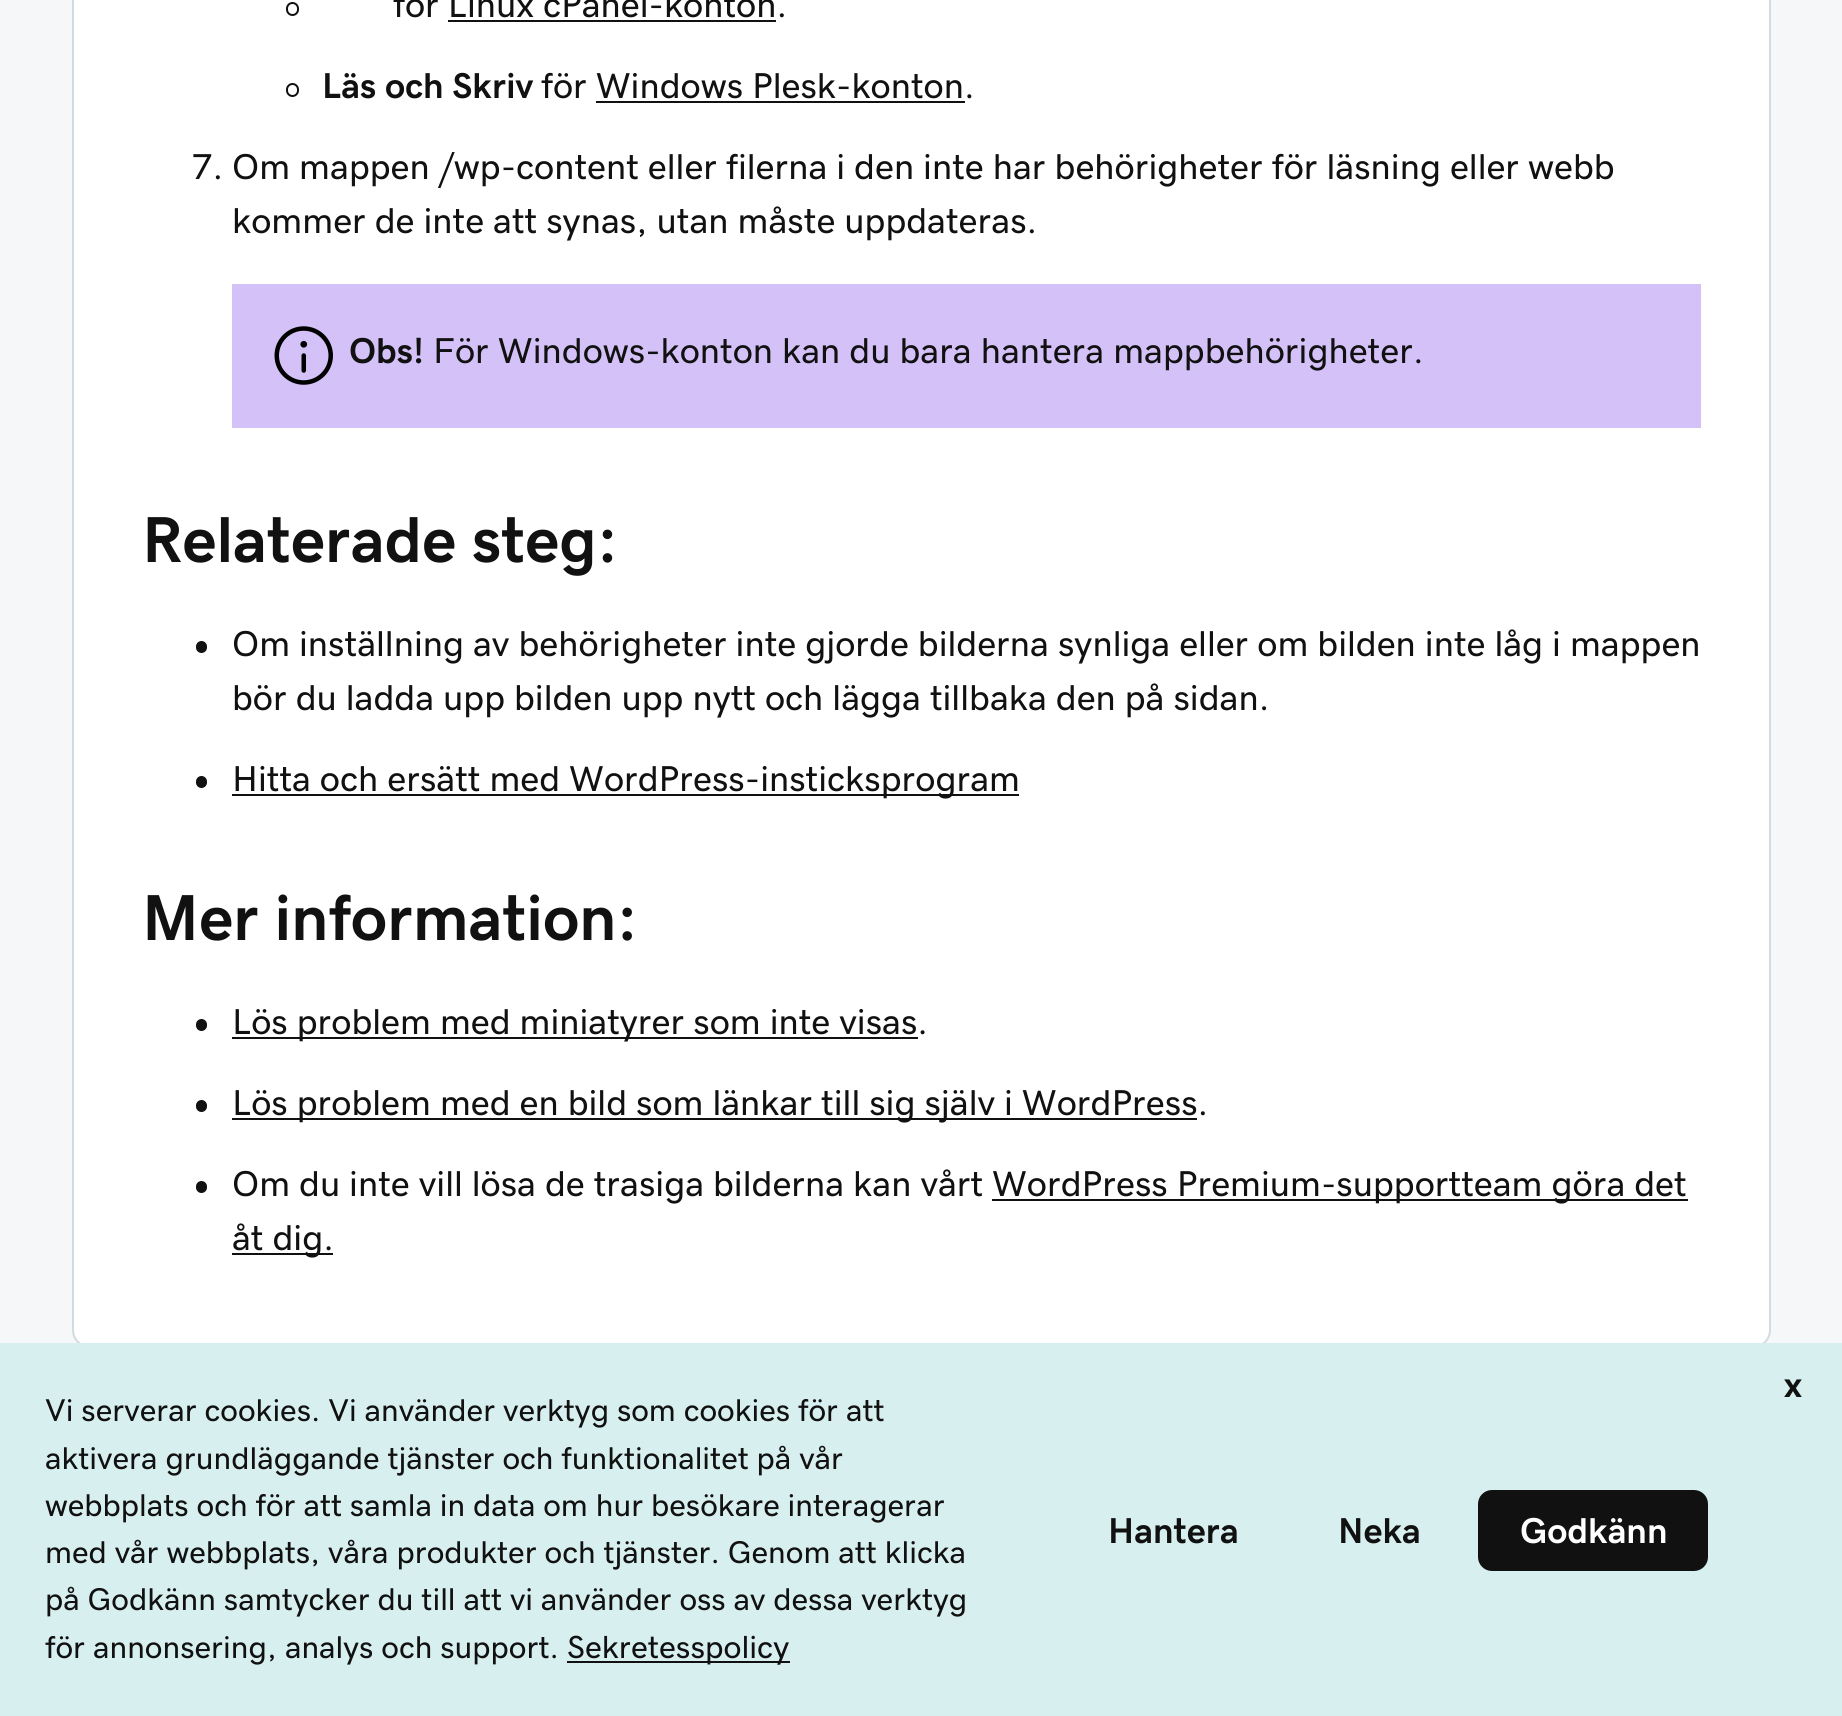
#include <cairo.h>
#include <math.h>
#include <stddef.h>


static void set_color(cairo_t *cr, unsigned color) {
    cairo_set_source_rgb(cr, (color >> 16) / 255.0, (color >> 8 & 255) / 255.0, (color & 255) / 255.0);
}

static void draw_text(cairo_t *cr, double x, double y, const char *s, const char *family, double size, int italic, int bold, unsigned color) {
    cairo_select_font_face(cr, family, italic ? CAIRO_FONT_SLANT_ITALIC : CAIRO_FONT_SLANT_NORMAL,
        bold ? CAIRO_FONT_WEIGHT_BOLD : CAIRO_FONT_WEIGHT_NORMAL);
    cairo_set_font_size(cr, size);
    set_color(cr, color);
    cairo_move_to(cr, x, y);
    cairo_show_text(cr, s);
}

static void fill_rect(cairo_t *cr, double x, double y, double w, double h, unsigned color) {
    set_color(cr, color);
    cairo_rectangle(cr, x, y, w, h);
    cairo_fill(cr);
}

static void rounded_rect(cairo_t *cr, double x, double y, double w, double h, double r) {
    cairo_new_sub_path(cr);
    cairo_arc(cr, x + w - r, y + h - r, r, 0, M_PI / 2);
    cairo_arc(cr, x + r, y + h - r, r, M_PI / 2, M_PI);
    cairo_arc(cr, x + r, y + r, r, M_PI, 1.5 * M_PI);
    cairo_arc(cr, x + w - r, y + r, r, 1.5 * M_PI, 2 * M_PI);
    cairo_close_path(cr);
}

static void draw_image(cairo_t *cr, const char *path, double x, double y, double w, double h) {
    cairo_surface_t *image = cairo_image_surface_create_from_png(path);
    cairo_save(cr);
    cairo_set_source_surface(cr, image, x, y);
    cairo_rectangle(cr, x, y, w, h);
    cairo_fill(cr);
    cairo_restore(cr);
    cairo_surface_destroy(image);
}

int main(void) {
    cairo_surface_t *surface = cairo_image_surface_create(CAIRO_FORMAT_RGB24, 1842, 1716);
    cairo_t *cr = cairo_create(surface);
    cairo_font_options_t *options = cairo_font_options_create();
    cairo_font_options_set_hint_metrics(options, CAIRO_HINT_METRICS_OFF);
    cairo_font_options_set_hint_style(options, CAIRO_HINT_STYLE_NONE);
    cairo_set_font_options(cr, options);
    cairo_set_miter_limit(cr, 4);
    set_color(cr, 0xF5F7F8);
    cairo_paint(cr);
    set_color(cr, 0xFFFFFF);
    rounded_rect(cr, 73, -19, 1697, 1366, 17);
    cairo_fill_preserve(cr);
    set_color(cr, 0xD4DBE0);
    cairo_stroke(cr);
    rounded_rect(cr, 287, 3, 11, 12, 5.5);
    set_color(cr, 0x111111);
    cairo_stroke(cr);
    draw_text(cr, 393, 17, "för Linux cPanel-konton.", "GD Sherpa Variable", 36, 0, 0, 0x111111);
    fill_rect(cr, 448, 20, 328, 2, 0x111111);
    rounded_rect(cr, 287, 84, 11, 12, 5.5);
    cairo_stroke(cr);
    draw_text(cr, 322, 98, "Läs och Skriv", "GD Sherpa Variable", 36, 0, 1, 0x111111);
    draw_text(cr, 541, 98, "för Windows Plesk-konton.", "GD Sherpa Variable", 36, 0, 0, 0x111111);
    fill_rect(cr, 596, 101, 369, 2, 0x111111);
    draw_text(cr, 192, 179, "7. Om mappen /wp-content eller filerna i den inte har behörigheter för läsning eller webb", "GD Sherpa Variable", 36, 0, 0, 0x111111);
    draw_text(cr, 232, 233, "kommer de inte att synas, utan måste uppdateras.", "GD Sherpa Variable", 36, 0, 0, 0x111111);
    fill_rect(cr, 232, 284, 1469, 144, 0xD3C1F7);
    draw_image(cr, "assets/img1.png", 274, 326, 59, 59);
    draw_text(cr, 349, 363, "Obs!", "GD Sherpa Variable", 36, 0, 1, 0x111111);
    draw_text(cr, 433, 363, "För Windows-konton kan du bara hantera mappbehörigheter.", "GD Sherpa Variable", 36, 0, 0, 0x111111);
    draw_text(cr, 142, 562, "Relaterade steg:", "GD Sherpa Variable", 65, 0, 1, 0x111111);
    rounded_rect(cr, 196, 641, 11, 12, 5.5);
    cairo_fill(cr);
    draw_text(cr, 232, 656, "Om inställning av behörigheter inte gjorde bilderna synliga eller om bilden inte låg i mappen", "GD Sherpa Variable", 36, 0, 0, 0x111111);
    draw_text(cr, 232, 710, "bör du ladda upp bilden upp nytt och lägga tillbaka den på sidan.", "GD Sherpa Variable", 36, 0, 0, 0x111111);
    rounded_rect(cr, 196, 776, 11, 12, 5.5);
    cairo_fill(cr);
    fill_rect(cr, 232, 794, 787, 2, 0x111111);
    draw_text(cr, 232, 791, "Hitta och ersätt med WordPress-insticksprogram", "GD Sherpa Variable", 36, 0, 0, 0x111111);
    draw_text(cr, 142, 940, "Mer information:", "GD Sherpa Variable", 65, 0, 1, 0x111111);
    rounded_rect(cr, 196, 1019, 11, 12, 5.5);
    cairo_fill(cr);
    fill_rect(cr, 232, 1037, 686, 2, 0x111111);
    draw_text(cr, 232, 1034, "Lös problem med miniatyrer som inte visas.", "GD Sherpa Variable", 36, 0, 0, 0x111111);
    rounded_rect(cr, 196, 1100, 11, 12, 5.5);
    cairo_fill(cr);
    fill_rect(cr, 232, 1118, 965, 2, 0x111111);
    draw_text(cr, 232, 1115, "Lös problem med en bild som länkar till sig själv i WordPress.", "GD Sherpa Variable", 36, 0, 0, 0x111111);
    rounded_rect(cr, 196, 1181, 11, 12, 5.5);
    cairo_fill(cr);
    draw_text(cr, 232, 1196, "Om du inte vill lösa de trasiga bilderna kan vårt", "GD Sherpa Variable", 36, 0, 0, 0x111111);
    fill_rect(cr, 992, 1199, 696, 2, 0x111111);
    draw_text(cr, 992, 1196, "WordPress Premium-supportteam göra det", "GD Sherpa Variable", 36, 0, 0, 0x111111);
    fill_rect(cr, 232, 1253, 101, 2, 0x111111);
    draw_text(cr, 232, 1250, "åt dig.", "GD Sherpa Variable", 36, 0, 0, 0x111111);
    fill_rect(cr, 0, 1343, 1842, 373, 0xD8EFEF);
    draw_text(cr, 1784, 1397, "x", "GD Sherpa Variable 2", 36, 0, 1, 0x111111);
    draw_text(cr, 45, 1421, "Vi serverar cookies. Vi använder verktyg som cookies för att", "GD Sherpa Variable", 31.5, 0, 0, 0x111111);
    draw_text(cr, 45, 1469, "aktivera grundläggande tjänster och funktionalitet på vår", "GD Sherpa Variable", 31.5, 0, 0, 0x111111);
    draw_text(cr, 45, 1516, "webbplats och för att samla in data om hur besökare interagerar", "GD Sherpa Variable", 31.5, 0, 0, 0x111111);
    draw_text(cr, 45, 1563, "med vår webbplats, våra produkter och tjänster. Genom att klicka", "GD Sherpa Variable", 31.5, 0, 0, 0x111111);
    draw_text(cr, 45, 1610, "på Godkänn samtycker du till att vi använder oss av dessa verktyg", "GD Sherpa Variable", 31.5, 0, 0, 0x111111);
    draw_text(cr, 45, 1658, "för annonsering, analys och support.", "GD Sherpa Variable", 31.5, 0, 0, 0x111111);
    fill_rect(cr, 567, 1661, 223, 2, 0x111111);
    draw_text(cr, 567, 1658, "Sekretesspolicy", "GD Sherpa Variable", 32, 0, 0, 0x111111);
    draw_text(cr, 1108, 1543, "Hantera", "GD Sherpa Variable 2", 36, 0, 1, 0x111111);
    draw_text(cr, 1338, 1543, "Neka", "GD Sherpa Variable 2", 36, 0, 1, 0x111111);
    rounded_rect(cr, 1478, 1490, 230, 81, 14);
    cairo_fill(cr);
    draw_text(cr, 1520, 1543, "Godkänn", "GD Sherpa Variable 2", 36, 0, 1, 0xFFFFFF);
    cairo_surface_write_to_png(surface, "output.png");
    cairo_font_options_destroy(options);
    cairo_destroy(cr);
    cairo_surface_destroy(surface);
    return 0;
}
